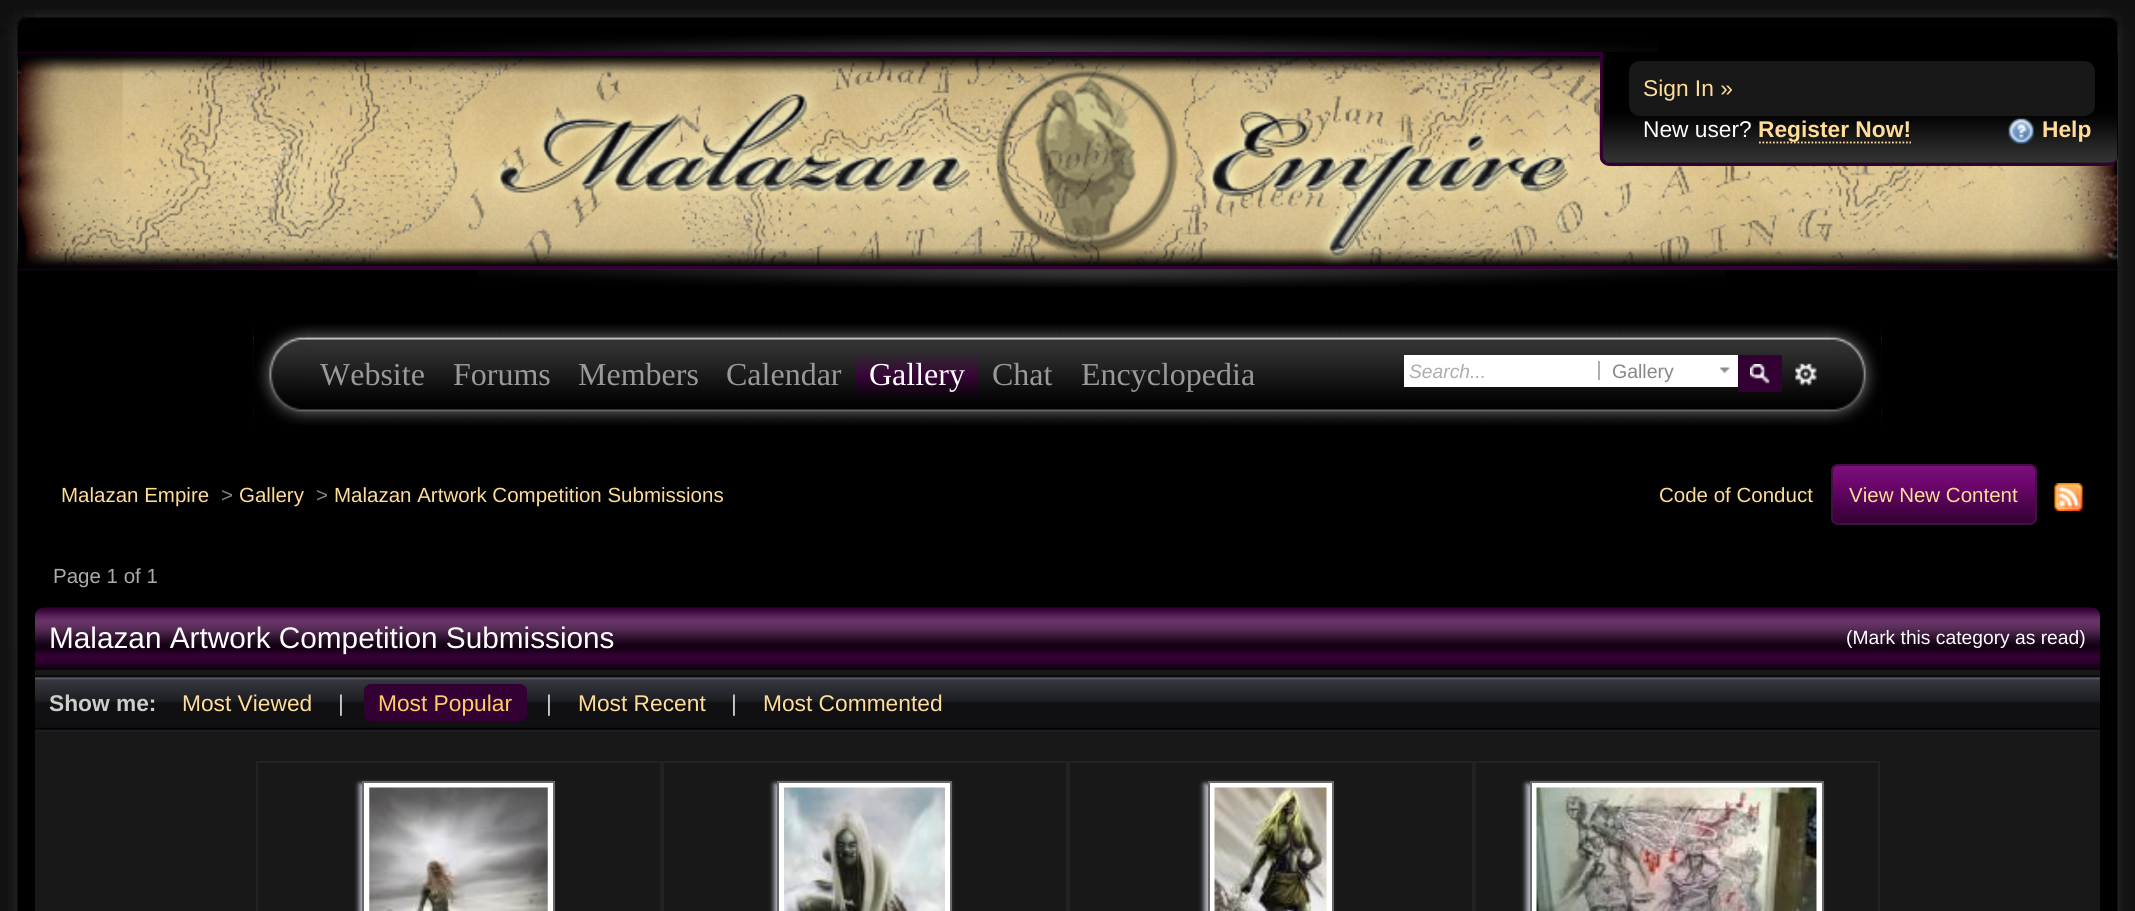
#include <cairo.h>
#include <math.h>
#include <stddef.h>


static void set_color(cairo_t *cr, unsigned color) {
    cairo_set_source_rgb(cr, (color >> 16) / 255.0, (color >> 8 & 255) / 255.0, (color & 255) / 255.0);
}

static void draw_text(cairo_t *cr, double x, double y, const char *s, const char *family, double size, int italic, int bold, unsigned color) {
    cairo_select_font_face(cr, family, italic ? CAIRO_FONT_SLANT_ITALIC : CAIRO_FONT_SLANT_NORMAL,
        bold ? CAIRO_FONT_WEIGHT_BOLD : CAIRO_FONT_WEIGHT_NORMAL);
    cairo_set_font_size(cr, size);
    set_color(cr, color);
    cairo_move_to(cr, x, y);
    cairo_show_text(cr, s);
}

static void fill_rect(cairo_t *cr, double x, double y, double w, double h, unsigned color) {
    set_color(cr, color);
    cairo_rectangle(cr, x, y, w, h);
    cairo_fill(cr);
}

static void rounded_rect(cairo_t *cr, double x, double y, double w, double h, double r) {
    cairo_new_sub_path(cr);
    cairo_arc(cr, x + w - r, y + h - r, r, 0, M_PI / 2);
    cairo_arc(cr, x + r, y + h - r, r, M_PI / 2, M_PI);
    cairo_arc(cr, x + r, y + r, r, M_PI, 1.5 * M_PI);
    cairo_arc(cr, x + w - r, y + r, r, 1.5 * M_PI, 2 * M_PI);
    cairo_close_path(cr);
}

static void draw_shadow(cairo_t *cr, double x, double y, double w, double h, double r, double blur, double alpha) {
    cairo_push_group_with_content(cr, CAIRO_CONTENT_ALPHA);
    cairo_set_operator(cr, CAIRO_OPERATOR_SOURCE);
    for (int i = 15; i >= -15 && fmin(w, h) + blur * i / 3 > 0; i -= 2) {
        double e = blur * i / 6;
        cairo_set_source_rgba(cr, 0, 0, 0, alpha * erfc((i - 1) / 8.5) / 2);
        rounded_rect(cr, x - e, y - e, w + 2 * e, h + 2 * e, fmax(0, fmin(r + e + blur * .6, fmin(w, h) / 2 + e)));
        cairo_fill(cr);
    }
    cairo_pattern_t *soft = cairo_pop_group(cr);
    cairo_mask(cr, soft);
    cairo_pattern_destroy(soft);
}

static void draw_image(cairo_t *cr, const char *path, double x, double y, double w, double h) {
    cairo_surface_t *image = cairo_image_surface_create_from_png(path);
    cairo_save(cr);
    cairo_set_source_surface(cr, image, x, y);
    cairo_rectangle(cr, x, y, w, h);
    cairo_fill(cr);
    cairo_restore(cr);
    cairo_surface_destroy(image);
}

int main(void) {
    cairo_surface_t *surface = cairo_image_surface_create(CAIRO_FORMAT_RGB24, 2135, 911);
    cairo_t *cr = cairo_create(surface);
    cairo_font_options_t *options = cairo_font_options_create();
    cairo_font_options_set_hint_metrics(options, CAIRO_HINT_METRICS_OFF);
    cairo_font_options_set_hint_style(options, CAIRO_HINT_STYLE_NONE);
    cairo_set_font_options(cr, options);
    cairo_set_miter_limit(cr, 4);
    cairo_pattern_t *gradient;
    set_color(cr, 0x101010);
    cairo_paint(cr);
    draw_image(cr, "assets/img1.png", 35, 9, 2065, 26);
    draw_image(cr, "assets/img2.png", 2100, 9, 35, 26);
    draw_image(cr, "assets/img3.png", 0, 9, 35, 26);
    fill_rect(cr, 18, 35, 2099, 876, 0x000000);
    draw_image(cr, "assets/img4.png", 0, 35, 18, 876);
    draw_image(cr, "assets/img5.png", 2117, 35, 18, 876);
    draw_image(cr, "assets/img6.png", 410, 35, 1248, 17);
    fill_rect(cr, 17, 52, 1583, 4, 0x310032);
    draw_image(cr, "assets/img7.png", 17, 52, 309, 4);
    draw_image(cr, "assets/img8.png", 17, 56, 2101, 210);
    draw_image(cr, "assets/img9.png", 17, 56, 106, 210);
    draw_image(cr, "assets/img10.png", 2012, 156, 106, 110);
    draw_image(cr, "assets/img11.png", 17, 56, 2101, 210);
    draw_image(cr, "assets/img12.png", 17, 56, 1583, 18);
    draw_image(cr, "assets/img13.png", 17, 248, 2101, 18);
    draw_image(cr, "assets/img14.png", 490, 70, 1083, 195);
    set_color(cr, 0x000000);
    cairo_new_path(cr);
    cairo_move_to(cr, 1603, 52);
    cairo_line_to(cr, 2118, 52);
    cairo_line_to(cr, 2118, 156);
    cairo_curve_to(cr, 2118, 160, 2113, 163, 2107, 163);
    cairo_line_to(cr, 1610, 163);
    cairo_curve_to(cr, 1606, 163, 1603, 160, 1603, 156);
    cairo_close_path(cr);
    cairo_fill(cr);
    draw_image(cr, "assets/img15.png", 1599, 110, 519, 53);
    set_color(cr, 0x330033);
    cairo_set_fill_rule(cr, CAIRO_FILL_RULE_EVEN_ODD);
    cairo_new_path(cr);
    cairo_move_to(cr, 1600, 52);
    cairo_line_to(cr, 2118, 52);
    cairo_line_to(cr, 2118, 156);
    cairo_curve_to(cr, 2118, 162, 2113, 166, 2107, 166);
    cairo_line_to(cr, 1610, 166);
    cairo_curve_to(cr, 1604, 166, 1600, 162, 1600, 156);
    cairo_close_path(cr);
    cairo_move_to(cr, 1603, 52);
    cairo_line_to(cr, 2118, 52);
    cairo_line_to(cr, 2118, 156);
    cairo_curve_to(cr, 2118, 160, 2113, 163, 2107, 163);
    cairo_line_to(cr, 1610, 163);
    cairo_curve_to(cr, 1606, 163, 1603, 160, 1603, 156);
    cairo_close_path(cr);
    cairo_fill(cr);
    set_color(cr, 0x181818);
    rounded_rect(cr, 1629, 61, 466, 55, 11);
    cairo_fill(cr);
    draw_text(cr, 1643, 96, "Sign In »", "Liberation Sans", 22.75, 0, 0, 0xFFDD99);
    draw_text(cr, 1643, 137, "New user?", "Liberation Sans", 22.75, 0, 0, 0xFFFFFF);
    cairo_new_path(cr);
    cairo_move_to(cr, 1759, 142.5);
    cairo_line_to(cr, 1911, 142.5);
    set_color(cr, 0xFFDD99);
    cairo_set_line_width(cr, 1.8);
    cairo_set_dash(cr, (double[]){1.75, 1.75}, 2, 0);
    cairo_stroke(cr);
    draw_text(cr, 1758, 137, "Register Now!", "Liberation Sans", 22.75, 0, 1, 0xFFDD99);
    draw_image(cr, "assets/img16.png", 2008, 118, 26, 26);
    draw_text(cr, 2042, 137, "Help", "Liberation Sans", 22.75, 0, 1, 0xFFDD99);
    fill_rect(cr, 17, 266, 2101, 4, 0x310032);
    draw_image(cr, "assets/img17.png", 17, 266, 309, 4);
    draw_image(cr, "assets/img18.png", 1810, 266, 308, 4);
    draw_image(cr, "assets/img19.png", 477, 269, 1248, 18);
    draw_image(cr, "assets/img20.png", 253, 324, 1629, 101);
    draw_image(cr, "assets/img21.png", 253, 324, 53, 101);
    draw_text(cr, 320, 385, "Website", "Liberation Serif", 32, 0, 0, 0x999999);
    draw_text(cr, 453, 385, "Forums", "Liberation Serif", 32, 0, 0, 0x999999);
    draw_text(cr, 578, 385, "Members", "Liberation Serif", 32, 0, 0, 0x999999);
    draw_text(cr, 726, 385, "Calendar", "Liberation Serif", 32, 0, 0, 0x999999);
    draw_image(cr, "assets/img22.png", 855, 353, 124, 45);
    draw_image(cr, "assets/img23.png", 855, 369, 124, 15);
    draw_text(cr, 869, 385, "Gallery", "Liberation Serif", 32, 0, 0, 0xFFFFFF);
    draw_text(cr, 992, 385, "Chat", "Liberation Serif", 32, 0, 0, 0x999999);
    draw_text(cr, 1081, 385, "Encyclopedia", "Liberation Serif", 32, 0, 0, 0x999999);
    draw_image(cr, "assets/img24.png", 1829, 324, 53, 101);
    fill_rect(cr, 1404, 355, 334, 32, 0xFFFFFF);
    draw_text(cr, 1409, 378, "Search...", "Liberation Sans", 19.25, 1, 0, 0xACACAC);
    draw_image(cr, "assets/img25.png", 1719, 367, 11, 7);
    fill_rect(cr, 1598, 361, 2, 19, 0xAFAFAF);
    draw_text(cr, 1612, 378, "Gallery", "Liberation Sans", 19.5, 0, 0, 0x878787);
    fill_rect(cr, 1738, 355, 44, 37, 0x330033);
    draw_image(cr, "assets/img26.png", 1750, 364, 20, 20);
    draw_image(cr, "assets/img27.png", 1795, 363, 22, 23);
    draw_text(cr, 61, 502, "Malazan Empire", "Liberation Sans", 20.5, 0, 0, 0xFFDD99);
    draw_text(cr, 221, 502, ">", "Liberation Sans", 20.5, 0, 0, 0x878787);
    draw_text(cr, 239, 502, "Gallery", "Liberation Sans", 20.5, 0, 0, 0xFFDD99);
    draw_text(cr, 316, 502, ">", "Liberation Sans", 20.5, 0, 0, 0x878787);
    draw_text(cr, 334, 502, "Malazan Artwork Competition Submissions", "Liberation Sans", 20.5, 0, 0, 0xFFDD99);
    draw_text(cr, 1659, 502, "Code of Conduct", "Liberation Sans", 20.5, 0, 0, 0xFFDD99);
    cairo_save(cr);
    cairo_set_fill_rule(cr, CAIRO_FILL_RULE_WINDING);
    rounded_rect(cr, 1831, 464, 206, 61, 7);
    cairo_clip(cr);
    gradient = cairo_pattern_create_linear(1934, 523, 1934, 466);
    cairo_pattern_add_color_stop_rgba(gradient, 0, 0.2, 0, 0.2, 1);
    cairo_pattern_add_color_stop_rgba(gradient, 0.68, 0.427, 0.024, 0.427, 1);
    cairo_pattern_add_color_stop_rgba(gradient, 1, 0.482, 0.059, 0.482, 1);
    cairo_set_source(cr, gradient);
    cairo_pattern_destroy(gradient);
    cairo_rectangle(cr, 1831, 466, 206, 57);
    cairo_fill(cr);
    cairo_restore(cr);
    rounded_rect(cr, 1832, 465, 204, 59, 6);
    set_color(cr, 0x460E46);
    cairo_set_line_width(cr, 2);
    cairo_set_dash(cr, NULL, 0, 0);
    cairo_stroke(cr);
    draw_text(cr, 1849, 502, "View New Content", "Liberation Sans", 20.5, 0, 0, 0xFFDD99);
    draw_image(cr, "assets/img28.png", 2054, 483, 29, 28);
    draw_text(cr, 53, 583, "Page 1 of 1", "Liberation Sans", 20.5, 0, 0, 0xACACAC);
    draw_image(cr, "assets/img29.png", 35, 607, 2065, 63);
    draw_text(cr, 49, 648, "Malazan Artwork Competition Submissions", "Liberation Sans", 29.75, 0, 0, 0xFFFFFF);
    draw_text(cr, 1846, 644, "(Mark this category as read)", "Liberation Sans", 19.25, 0, 0, 0xFFFFFF);
    fill_rect(cr, 35, 670, 2065, 241, 0x181818);
    draw_image(cr, "assets/img30.png", 35, 675, 2065, 57);
    draw_text(cr, 49, 711, "Show me:", "Liberation Sans", 22.75, 0, 1, 0xCCCCCC);
    draw_text(cr, 182, 711, "Most Viewed", "Liberation Sans", 22.75, 0, 0, 0xFFDD99);
    draw_text(cr, 338, 711, "|", "Liberation Sans", 22.75, 0, 0, 0xCCCCCC);
    set_color(cr, 0x330033);
    rounded_rect(cr, 364, 684, 163, 37, 7);
    cairo_fill(cr);
    draw_text(cr, 378, 711, "Most Popular", "Liberation Sans", 22.75, 0, 0, 0xFFCC66);
    draw_text(cr, 546, 711, "|", "Liberation Sans", 22.75, 0, 0, 0xCCCCCC);
    draw_text(cr, 578, 711, "Most Recent", "Liberation Sans", 22.75, 0, 0, 0xFFDD99);
    draw_text(cr, 731, 711, "|", "Liberation Sans", 22.75, 0, 0, 0xCCCCCC);
    draw_text(cr, 763, 711, "Most Commented", "Liberation Sans", 22.75, 0, 0, 0xFFDD99);
    cairo_rectangle(cr, 257, 762, 404, 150);
    set_color(cr, 0x222222);
    cairo_stroke(cr);
    set_color(cr, 0xB8BCC5);
    draw_shadow(cr, 359, 784, 192, 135, 0, 2.5, 1);
    set_color(cr, 0xFFFFFF);
    cairo_rectangle(cr, 363, 782, 191, 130);
    cairo_fill_preserve(cr);
    set_color(cr, 0x6A6A6A);
    cairo_stroke(cr);
    draw_image(cr, "assets/img31.png", 369, 787, 179, 124);
    cairo_rectangle(cr, 663, 762, 404, 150);
    set_color(cr, 0x222222);
    cairo_stroke(cr);
    set_color(cr, 0xB8BCC5);
    draw_shadow(cr, 774, 784, 175, 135, 0, 2.5, 1);
    set_color(cr, 0xFFFFFF);
    cairo_rectangle(cr, 778, 782, 173, 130);
    cairo_fill_preserve(cr);
    set_color(cr, 0x6A6A6A);
    cairo_stroke(cr);
    draw_image(cr, "assets/img32.png", 784, 787, 161, 124);
    cairo_rectangle(cr, 1069, 762, 404, 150);
    set_color(cr, 0x222222);
    cairo_stroke(cr);
    set_color(cr, 0xB8BCC5);
    draw_shadow(cr, 1204, 784, 126, 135, 0, 2.5, 1);
    set_color(cr, 0xFFFFFF);
    cairo_rectangle(cr, 1209, 782, 124, 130);
    cairo_fill_preserve(cr);
    set_color(cr, 0x6A6A6A);
    cairo_stroke(cr);
    draw_image(cr, "assets/img33.png", 1214, 787, 113, 124);
    cairo_rectangle(cr, 1475, 762, 404, 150);
    set_color(cr, 0x222222);
    cairo_stroke(cr);
    set_color(cr, 0xB8BCC5);
    draw_shadow(cr, 1526, 784, 294, 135, 0, 2.5, 1);
    set_color(cr, 0xFFFFFF);
    cairo_rectangle(cr, 1531, 782, 292, 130);
    cairo_fill_preserve(cr);
    set_color(cr, 0x6A6A6A);
    cairo_stroke(cr);
    draw_image(cr, "assets/img34.png", 1536, 787, 281, 124);
    cairo_surface_write_to_png(surface, "output.png");
    cairo_font_options_destroy(options);
    cairo_destroy(cr);
    cairo_surface_destroy(surface);
    return 0;
}
